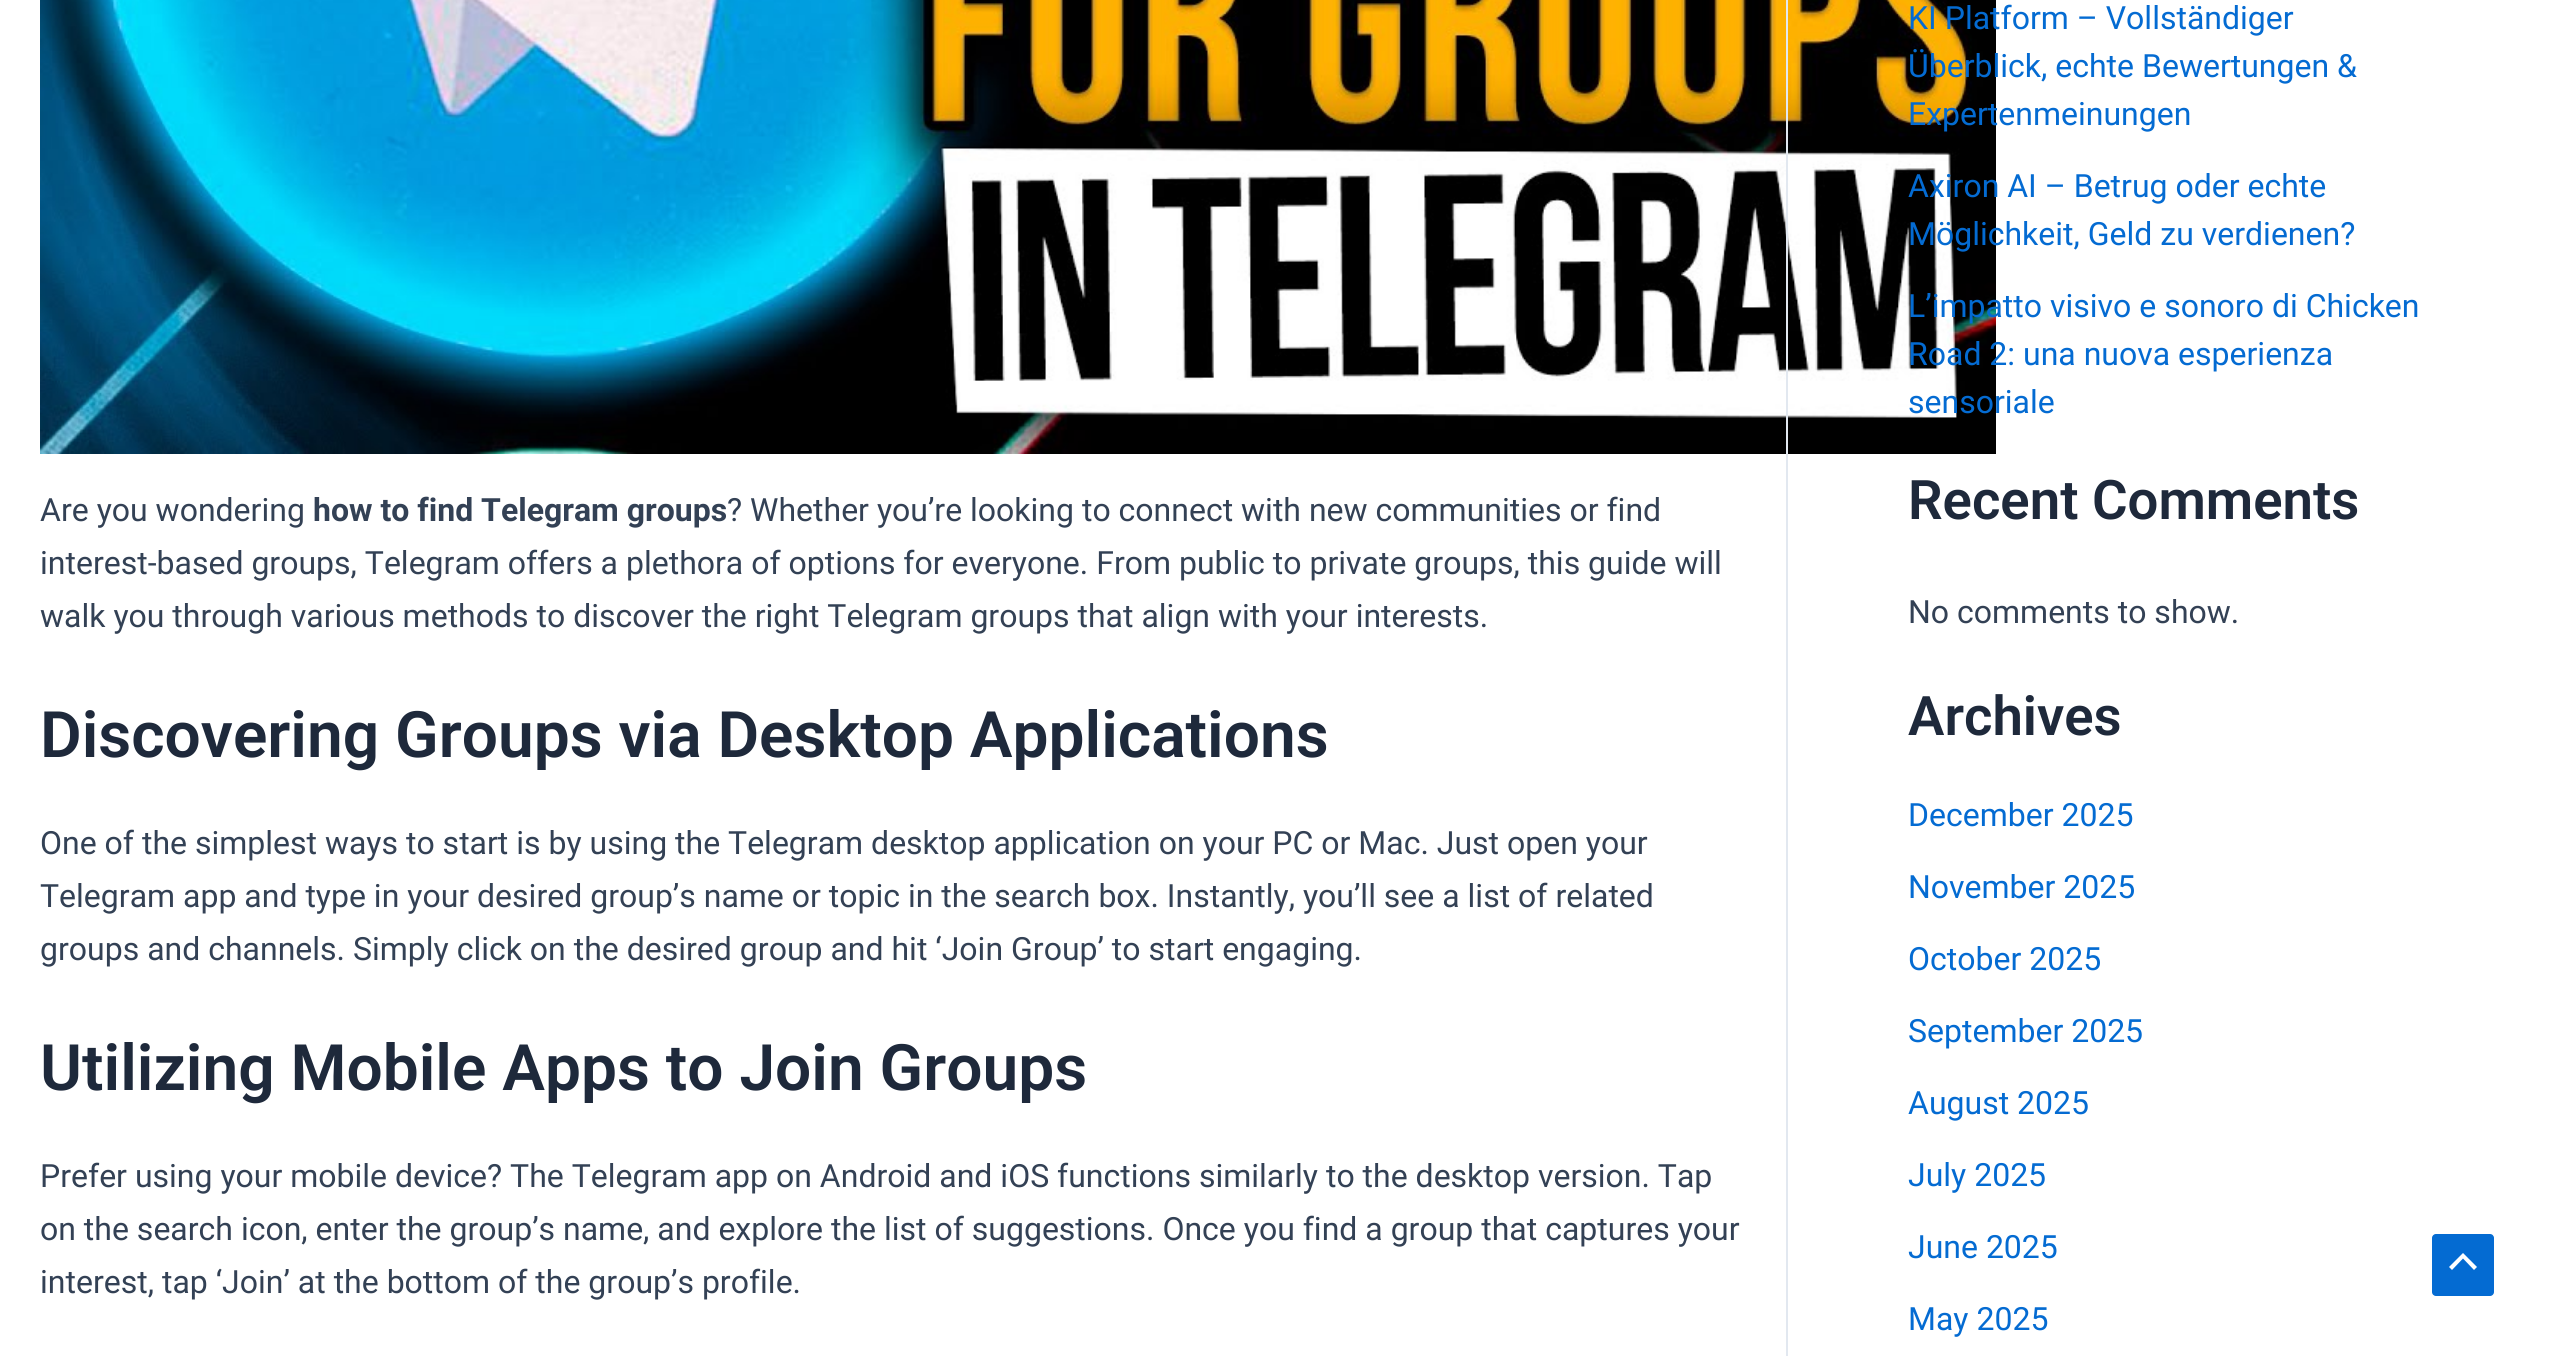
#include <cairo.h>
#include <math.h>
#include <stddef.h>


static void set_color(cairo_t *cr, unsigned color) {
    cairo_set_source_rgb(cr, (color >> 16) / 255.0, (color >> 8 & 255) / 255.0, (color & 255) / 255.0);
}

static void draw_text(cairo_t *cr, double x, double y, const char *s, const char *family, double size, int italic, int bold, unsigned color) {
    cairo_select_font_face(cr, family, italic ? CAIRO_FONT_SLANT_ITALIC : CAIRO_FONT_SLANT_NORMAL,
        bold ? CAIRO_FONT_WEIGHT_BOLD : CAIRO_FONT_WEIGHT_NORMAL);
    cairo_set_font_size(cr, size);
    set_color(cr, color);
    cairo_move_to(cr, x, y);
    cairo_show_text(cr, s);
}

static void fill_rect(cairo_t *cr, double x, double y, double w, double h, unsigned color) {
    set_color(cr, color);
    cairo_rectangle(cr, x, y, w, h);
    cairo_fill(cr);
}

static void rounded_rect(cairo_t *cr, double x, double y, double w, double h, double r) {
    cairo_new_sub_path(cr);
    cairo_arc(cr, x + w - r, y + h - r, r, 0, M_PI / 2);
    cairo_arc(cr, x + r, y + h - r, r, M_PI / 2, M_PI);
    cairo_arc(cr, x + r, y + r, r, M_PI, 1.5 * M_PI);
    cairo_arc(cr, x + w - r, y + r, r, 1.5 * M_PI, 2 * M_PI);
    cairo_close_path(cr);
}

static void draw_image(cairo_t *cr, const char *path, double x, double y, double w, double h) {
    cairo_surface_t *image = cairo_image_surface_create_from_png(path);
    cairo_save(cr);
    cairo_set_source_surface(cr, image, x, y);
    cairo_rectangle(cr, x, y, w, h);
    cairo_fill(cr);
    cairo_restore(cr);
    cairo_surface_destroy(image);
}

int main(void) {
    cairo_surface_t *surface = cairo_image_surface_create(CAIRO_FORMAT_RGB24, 2554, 1356);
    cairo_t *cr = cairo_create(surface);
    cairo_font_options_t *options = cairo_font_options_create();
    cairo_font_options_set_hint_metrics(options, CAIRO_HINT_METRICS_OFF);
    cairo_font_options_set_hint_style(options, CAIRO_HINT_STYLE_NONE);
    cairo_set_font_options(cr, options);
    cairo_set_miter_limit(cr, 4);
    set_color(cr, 0xFFFFFF);
    cairo_paint(cr);
    draw_image(cr, "assets/img1.png", 40, 0, 1956, 454);
    draw_text(cr, 40, 521, "Are you wondering", "Roboto", 32, 0, 0, 0x334155);
    draw_text(cr, 313, 521, "how to find Telegram groups", "Roboto", 32, 0, 1, 0x334155);
    draw_text(cr, 727, 521, "? Whether you’re looking to connect with new communities or find", "Roboto", 32, 0, 0, 0x334155);
    draw_text(cr, 40, 574, "interest-based groups, Telegram offers a plethora of options for everyone. From public to private groups, this guide will", "Roboto", 32, 0, 0, 0x334155);
    draw_text(cr, 40, 627, "walk you through various methods to discover the right Telegram groups that align with your interests.", "Roboto", 32, 0, 0, 0x334155);
    draw_text(cr, 40, 757, "Discovering Groups via Desktop Applications", "Roboto SemiBold", 64, 0, 0, 0x1E293B);
    draw_text(cr, 40, 854, "One of the simplest ways to start is by using the Telegram desktop application on your PC or Mac. Just open your", "Roboto", 32, 0, 0, 0x334155);
    draw_text(cr, 40, 907, "Telegram app and type in your desired group’s name or topic in the search box. Instantly, you’ll see a list of related", "Roboto", 32, 0, 0, 0x334155);
    draw_text(cr, 40, 960, "groups and channels. Simply click on the desired group and hit ‘Join Group’ to start engaging.", "Roboto", 32, 0, 0, 0x334155);
    draw_text(cr, 40, 1090, "Utilizing Mobile Apps to Join Groups", "Roboto SemiBold", 64, 0, 0, 0x1E293B);
    draw_text(cr, 40, 1187, "Prefer using your mobile device? The Telegram app on Android and iOS functions similarly to the desktop version. Tap", "Roboto", 32, 0, 0, 0x334155);
    draw_text(cr, 40, 1240, "on the search icon, enter the group’s name, and explore the list of suggestions. Once you find a group that captures your", "Roboto", 32, 0, 0, 0x334155);
    draw_text(cr, 40, 1293, "interest, tap ‘Join’ at the bottom of the group’s profile.", "Roboto", 32, 0, 0, 0x334155);
    fill_rect(cr, 1786, 0, 2, 1356, 0xE2E8F0);
    draw_text(cr, 1908, 29, "KI Platform – Vollständiger", "Roboto", 32, 0, 0, 0x046BD2);
    draw_text(cr, 1908, 77, "Überblick, echte Bewertungen &", "Roboto", 32, 0, 0, 0x046BD2);
    draw_text(cr, 1908, 125, "Expertenmeinungen", "Roboto", 32, 0, 0, 0x046BD2);
    draw_text(cr, 1908, 197, "Axiron AI – Betrug oder echte", "Roboto", 32, 0, 0, 0x046BD2);
    draw_text(cr, 1908, 245, "Möglichkeit, Geld zu verdienen?", "Roboto", 32, 0, 0, 0x046BD2);
    draw_text(cr, 1908, 317, "L’impatto visivo e sonoro di Chicken", "Roboto", 32, 0, 0, 0x046BD2);
    draw_text(cr, 1908, 365, "Road 2: una nuova esperienza", "Roboto", 32, 0, 0, 0x046BD2);
    draw_text(cr, 1908, 413, "sensoriale", "Roboto", 32, 0, 0, 0x046BD2);
    draw_text(cr, 1908, 519, "Recent Comments", "Roboto SemiBold", 54.5, 0, 0, 0x1E293B);
    draw_text(cr, 1908, 623, "No comments to show.", "Roboto", 32, 0, 0, 0x334155);
    draw_text(cr, 1908, 735, "Archives", "Roboto SemiBold", 54.5, 0, 0, 0x1E293B);
    draw_text(cr, 1908, 826, "December 2025", "Roboto", 32, 0, 0, 0x046BD2);
    draw_text(cr, 1908, 898, "November 2025", "Roboto", 32, 0, 0, 0x046BD2);
    draw_text(cr, 1908, 970, "October 2025", "Roboto", 32, 0, 0, 0x046BD2);
    draw_text(cr, 1908, 1042, "September 2025", "Roboto", 32, 0, 0, 0x046BD2);
    draw_text(cr, 1908, 1114, "August 2025", "Roboto", 32, 0, 0, 0x046BD2);
    draw_text(cr, 1908, 1186, "July 2025", "Roboto", 32, 0, 0, 0x046BD2);
    draw_text(cr, 1908, 1258, "June 2025", "Roboto", 32, 0, 0, 0x046BD2);
    draw_text(cr, 1908, 1330, "May 2025", "Roboto", 32, 0, 0, 0x046BD2);
    rounded_rect(cr, 2432, 1234, 62, 62, 4);
    cairo_fill(cr);
    set_color(cr, 0xFFFFFF);
    cairo_new_path(cr);
    cairo_move_to(cr, 2477, 1267);
    cairo_line_to(cr, 2463, 1253);
    cairo_line_to(cr, 2449, 1267);
    cairo_line_to(cr, 2452, 1270);
    cairo_line_to(cr, 2463, 1258.5);
    cairo_line_to(cr, 2474, 1270);
    cairo_close_path(cr);
    cairo_fill(cr);
    cairo_surface_write_to_png(surface, "output.png");
    cairo_font_options_destroy(options);
    cairo_destroy(cr);
    cairo_surface_destroy(surface);
    return 0;
}
